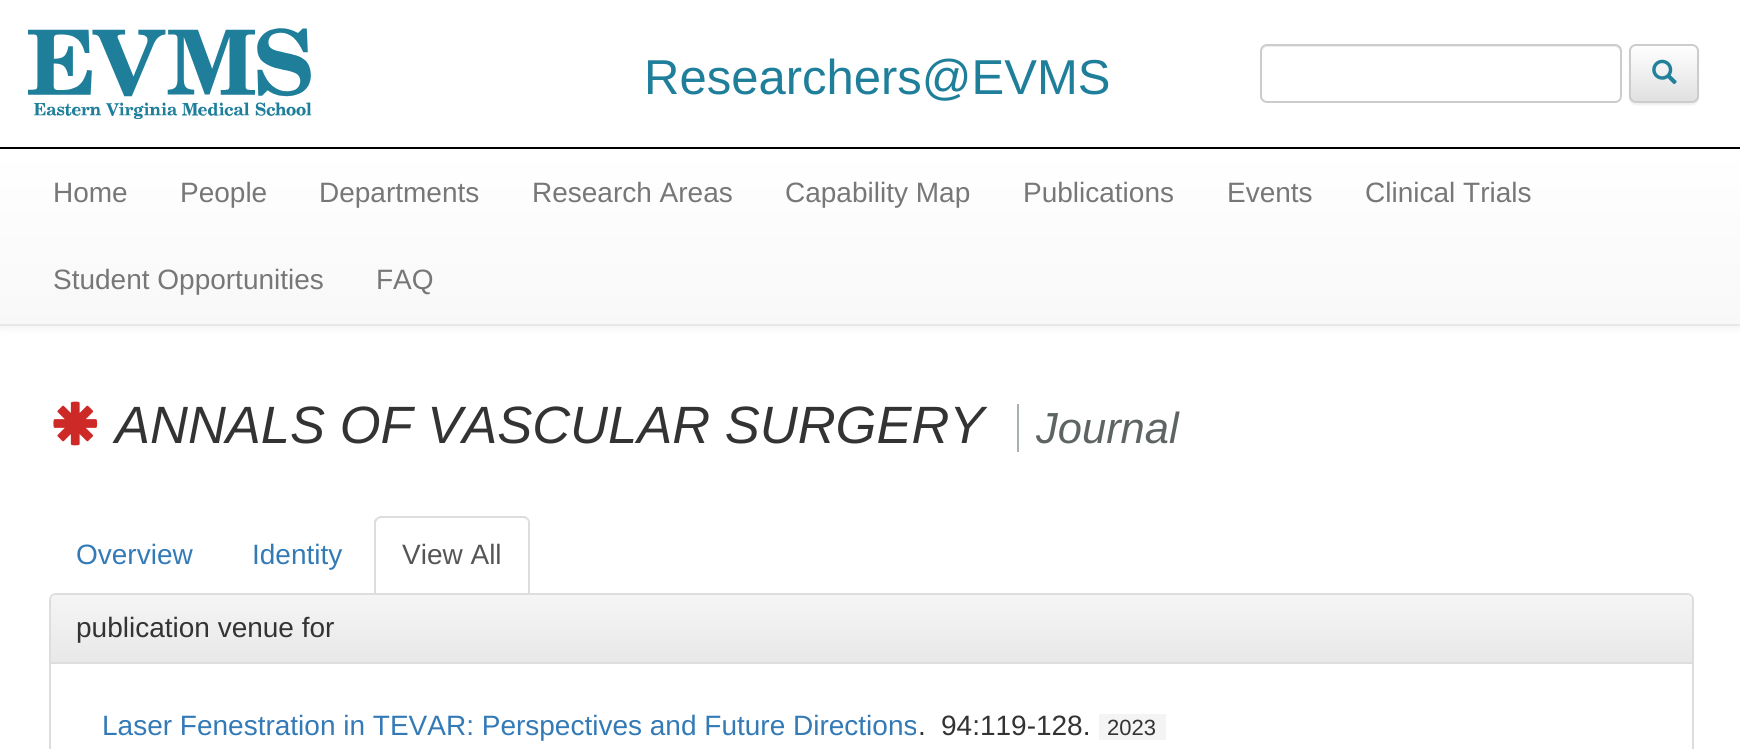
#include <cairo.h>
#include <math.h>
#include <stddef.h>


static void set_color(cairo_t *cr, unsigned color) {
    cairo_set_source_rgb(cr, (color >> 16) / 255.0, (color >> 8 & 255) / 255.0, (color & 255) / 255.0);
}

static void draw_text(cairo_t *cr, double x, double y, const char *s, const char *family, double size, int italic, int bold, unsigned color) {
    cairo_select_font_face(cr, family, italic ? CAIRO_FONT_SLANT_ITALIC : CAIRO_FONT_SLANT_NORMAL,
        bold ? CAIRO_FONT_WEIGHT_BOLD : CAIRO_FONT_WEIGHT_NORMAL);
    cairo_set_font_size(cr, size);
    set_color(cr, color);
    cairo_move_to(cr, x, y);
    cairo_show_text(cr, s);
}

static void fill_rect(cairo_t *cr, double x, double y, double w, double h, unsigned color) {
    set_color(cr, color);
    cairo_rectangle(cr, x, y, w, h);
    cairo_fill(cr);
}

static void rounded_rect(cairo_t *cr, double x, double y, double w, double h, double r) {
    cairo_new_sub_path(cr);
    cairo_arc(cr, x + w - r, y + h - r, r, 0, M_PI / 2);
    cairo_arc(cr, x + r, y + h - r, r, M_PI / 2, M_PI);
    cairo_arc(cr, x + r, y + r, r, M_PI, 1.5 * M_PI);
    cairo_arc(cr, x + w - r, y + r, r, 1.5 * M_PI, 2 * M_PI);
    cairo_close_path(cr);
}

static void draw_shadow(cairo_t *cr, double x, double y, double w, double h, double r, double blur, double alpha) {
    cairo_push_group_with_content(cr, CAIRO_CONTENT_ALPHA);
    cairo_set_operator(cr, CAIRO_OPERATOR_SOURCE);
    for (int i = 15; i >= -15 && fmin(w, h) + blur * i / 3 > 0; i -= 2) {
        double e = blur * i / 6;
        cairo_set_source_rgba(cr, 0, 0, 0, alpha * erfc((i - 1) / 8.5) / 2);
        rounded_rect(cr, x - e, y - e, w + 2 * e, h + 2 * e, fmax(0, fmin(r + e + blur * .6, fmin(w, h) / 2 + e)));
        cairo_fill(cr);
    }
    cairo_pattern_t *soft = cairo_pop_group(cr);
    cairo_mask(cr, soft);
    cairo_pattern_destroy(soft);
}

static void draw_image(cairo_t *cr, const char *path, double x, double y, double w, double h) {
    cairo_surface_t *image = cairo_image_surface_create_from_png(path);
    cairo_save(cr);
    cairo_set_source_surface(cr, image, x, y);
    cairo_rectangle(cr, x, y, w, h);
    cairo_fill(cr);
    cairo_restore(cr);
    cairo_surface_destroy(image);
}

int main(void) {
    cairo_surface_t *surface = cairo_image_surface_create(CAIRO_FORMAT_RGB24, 1740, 749);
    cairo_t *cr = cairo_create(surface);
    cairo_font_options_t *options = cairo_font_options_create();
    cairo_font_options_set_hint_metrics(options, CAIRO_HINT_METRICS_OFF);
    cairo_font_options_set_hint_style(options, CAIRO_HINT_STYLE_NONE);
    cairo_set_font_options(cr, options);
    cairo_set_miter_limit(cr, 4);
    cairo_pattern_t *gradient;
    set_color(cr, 0xFFFFFF);
    cairo_paint(cr);
    fill_rect(cr, 0, 147, 1740, 2, 0x000000);
    draw_image(cr, "assets/img1.png", 28, 28, 284, 91);
    draw_text(cr, 644, 94, "Researchers@EVMS", "Liberation Sans", 49, 0, 0, 0x1F7F9B);
    set_color(cr, 0xECECEC);
    cairo_new_path(cr);
    cairo_move_to(cr, 1267, 47);
    cairo_line_to(cr, 1615, 47);
    cairo_curve_to(cr, 1618, 47, 1620, 50, 1620, 52);
    cairo_line_to(cr, 1620, 98);
    cairo_line_to(cr, 1619, 101);
    cairo_curve_to(cr, 1620, 100, 1621, 98, 1621, 97);
    cairo_line_to(cr, 1621, 51);
    cairo_curve_to(cr, 1621, 48, 1619, 46, 1616, 46);
    cairo_line_to(cr, 1267, 46);
    cairo_curve_to(cr, 1264, 46, 1262, 48, 1262, 51);
    cairo_line_to(cr, 1262, 52);
    cairo_curve_to(cr, 1262, 50, 1264, 47, 1267, 47);
    cairo_close_path(cr);
    cairo_fill(cr);
    rounded_rect(cr, 1261, 45, 360, 57, 6);
    set_color(cr, 0xCCCCCC);
    cairo_stroke(cr);
    set_color(cr, 0x000000);
    draw_shadow(cr, 1629, 46, 70, 59, 7, 1, 0.07);
    cairo_save(cr);
    rounded_rect(cr, 1629, 44, 70, 59, 7);
    cairo_clip(cr);
    gradient = cairo_pattern_create_linear(1664, 45, 1664, 102);
    cairo_pattern_add_color_stop_rgba(gradient, 0, 1, 1, 1, 1);
    cairo_pattern_add_color_stop_rgba(gradient, 1, 0.878, 0.878, 0.878, 1);
    cairo_set_source(cr, gradient);
    cairo_pattern_destroy(gradient);
    cairo_rectangle(cr, 1629, 46, 70, 56);
    cairo_fill(cr);
    cairo_restore(cr);
    rounded_rect(cr, 1630, 45, 68, 57, 6);
    set_color(cr, 0xCCCCCC);
    cairo_stroke(cr);
    draw_image(cr, "assets/img2.png", 1652, 59, 25, 26);
    set_color(cr, 0x000000);
    draw_shadow(cr, 0, 151, 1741, 176, 0, 4.5, 0.07);
    gradient = cairo_pattern_create_linear(871, 149, 871, 324);
    cairo_pattern_add_color_stop_rgba(gradient, 0, 1, 1, 1, 1);
    cairo_pattern_add_color_stop_rgba(gradient, 1, 0.973, 0.973, 0.973, 1);
    cairo_set_source(cr, gradient);
    cairo_pattern_destroy(gradient);
    cairo_rectangle(cr, 0, 149, 1740, 175);
    cairo_fill(cr);
    fill_rect(cr, 0, 324, 1740, 2, 0xE7E7E7);
    draw_text(cr, 53, 202, "Home", "Liberation Sans", 28, 0, 0, 0x777777);
    draw_text(cr, 180, 202, "People", "Liberation Sans", 28, 0, 0, 0x777777);
    draw_text(cr, 319, 202, "Departments", "Liberation Sans", 28, 0, 0, 0x777777);
    draw_text(cr, 532, 202, "Research Areas", "Liberation Sans", 28, 0, 0, 0x777777);
    draw_text(cr, 785, 202, "Capability Map", "Liberation Sans", 28, 0, 0, 0x777777);
    draw_text(cr, 1023, 202, "Publications", "Liberation Sans", 28, 0, 0, 0x777777);
    draw_text(cr, 1227, 202, "Events", "Liberation Sans", 28, 0, 0, 0x777777);
    draw_text(cr, 1365, 202, "Clinical Trials", "Liberation Sans", 28, 0, 0, 0x777777);
    draw_text(cr, 53, 289, "Student Opportunities", "Liberation Sans", 28, 0, 0, 0x777777);
    draw_text(cr, 376, 289, "FAQ", "Liberation Sans", 28, 0, 0, 0x777777);
    draw_image(cr, "assets/img3.png", 53, 401, 45, 45);
    draw_text(cr, 115, 443, "ANNALS OF VASCULAR SURGERY", "Liberation Sans", 52.5, 1, 0, 0x333333);
    draw_text(cr, 1036, 443, "Journal", "Liberation Sans", 43.5, 1, 0, 0x5E6363);
    fill_rect(cr, 1017, 404, 2, 48, 0xA6B1B0);
    draw_text(cr, 76, 564, "Overview", "Liberation Sans", 28, 0, 0, 0x337AB7);
    draw_text(cr, 252, 564, "Identity", "Liberation Sans", 28, 0, 0, 0x337AB7);
    set_color(cr, 0xDDDDDD);
    cairo_new_path(cr);
    cairo_move_to(cr, 382, 518);
    cairo_curve_to(cr, 380, 518, 379, 519, 378, 519);
    cairo_line_to(cr, 376, 518);
    cairo_line_to(cr, 380, 516);
    cairo_line_to(cr, 525, 516);
    cairo_line_to(cr, 528, 518);
    cairo_line_to(cr, 527, 520);
    cairo_curve_to(cr, 526, 519, 525, 518, 523, 518);
    cairo_close_path(cr);
    cairo_fill(cr);
    cairo_new_path(cr);
    cairo_move_to(cr, 528, 518);
    cairo_curve_to(cr, 529, 519, 530, 521, 530, 523);
    cairo_line_to(cr, 530, 595);
    cairo_line_to(cr, 528, 593);
    cairo_line_to(cr, 528, 523);
    cairo_curve_to(cr, 528, 522, 528, 520, 527, 520);
    cairo_close_path(cr);
    cairo_fill(cr);
    cairo_new_path(cr);
    cairo_move_to(cr, 374, 595);
    cairo_line_to(cr, 374, 521);
    cairo_line_to(cr, 376, 518);
    cairo_line_to(cr, 378, 519);
    cairo_line_to(cr, 376, 522);
    cairo_line_to(cr, 376, 593);
    cairo_close_path(cr);
    cairo_fill(cr);
    draw_text(cr, 402, 564, "View All", "Liberation Sans", 28, 0, 0, 0x555555);
    set_color(cr, 0xFFFFFF);
    rounded_rect(cr, 50, 594, 1643, 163, 6);
    cairo_fill_preserve(cr);
    set_color(cr, 0xDDDDDD);
    cairo_stroke(cr);
    gradient = cairo_pattern_create_linear(872, 595, 872, 662);
    cairo_pattern_add_color_stop_rgba(gradient, 0, 0.961, 0.961, 0.961, 1);
    cairo_pattern_add_color_stop_rgba(gradient, 1, 0.91, 0.91, 0.91, 1);
    cairo_set_source(cr, gradient);
    cairo_pattern_destroy(gradient);
    cairo_new_path(cr);
    cairo_move_to(cr, 56, 595);
    cairo_line_to(cr, 1687, 595);
    cairo_curve_to(cr, 1690, 595, 1692, 597, 1692, 600);
    cairo_line_to(cr, 1692, 662);
    cairo_line_to(cr, 51, 662);
    cairo_line_to(cr, 51, 600);
    cairo_curve_to(cr, 51, 597, 53, 595, 56, 595);
    cairo_close_path(cr);
    cairo_fill(cr);
    fill_rect(cr, 51, 662, 1641, 2, 0xDDDDDD);
    draw_text(cr, 76, 637, "publication venue for", "Liberation Sans", 28, 0, 0, 0x333333);
    draw_text(cr, 102, 735, "Laser Fenestration in TEVAR: Perspectives and Future Directions", "Liberation Sans", 28, 0, 0, 0x337AB7);
    draw_text(cr, 918, 735, ".", "Liberation Sans", 28, 0, 0, 0x333333);
    draw_text(cr, 941, 735, "94:119-128.", "Liberation Sans", 28, 0, 0, 0x333333);
    fill_rect(cr, 1099, 714, 67, 26, 0xF4F4F4);
    draw_text(cr, 1107, 735, "2023", "Liberation Sans", 22, 0, 0, 0x333333);
    cairo_surface_write_to_png(surface, "output.png");
    cairo_font_options_destroy(options);
    cairo_destroy(cr);
    cairo_surface_destroy(surface);
    return 0;
}
